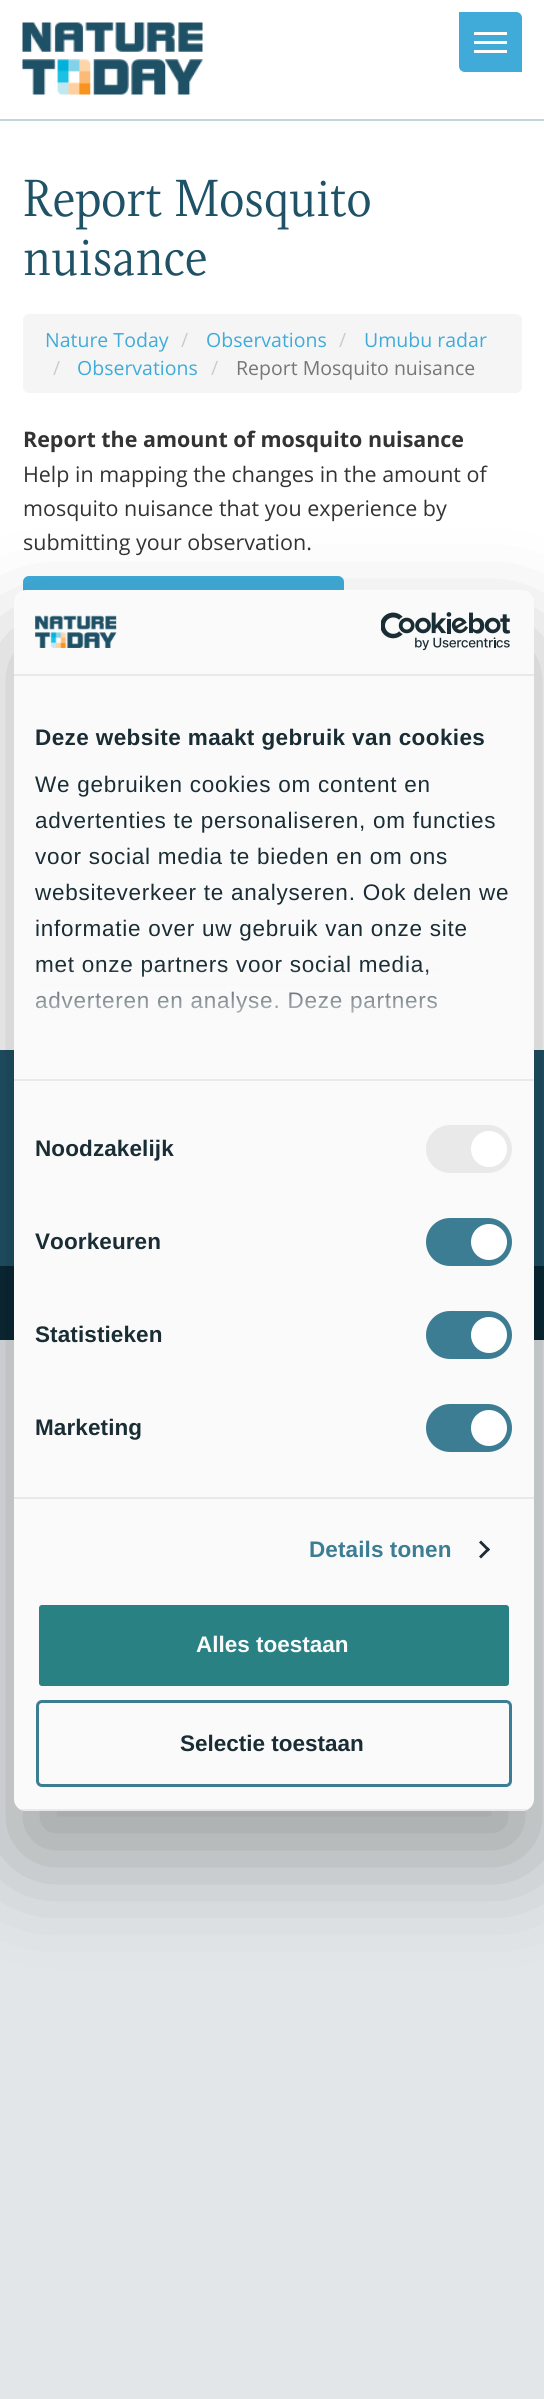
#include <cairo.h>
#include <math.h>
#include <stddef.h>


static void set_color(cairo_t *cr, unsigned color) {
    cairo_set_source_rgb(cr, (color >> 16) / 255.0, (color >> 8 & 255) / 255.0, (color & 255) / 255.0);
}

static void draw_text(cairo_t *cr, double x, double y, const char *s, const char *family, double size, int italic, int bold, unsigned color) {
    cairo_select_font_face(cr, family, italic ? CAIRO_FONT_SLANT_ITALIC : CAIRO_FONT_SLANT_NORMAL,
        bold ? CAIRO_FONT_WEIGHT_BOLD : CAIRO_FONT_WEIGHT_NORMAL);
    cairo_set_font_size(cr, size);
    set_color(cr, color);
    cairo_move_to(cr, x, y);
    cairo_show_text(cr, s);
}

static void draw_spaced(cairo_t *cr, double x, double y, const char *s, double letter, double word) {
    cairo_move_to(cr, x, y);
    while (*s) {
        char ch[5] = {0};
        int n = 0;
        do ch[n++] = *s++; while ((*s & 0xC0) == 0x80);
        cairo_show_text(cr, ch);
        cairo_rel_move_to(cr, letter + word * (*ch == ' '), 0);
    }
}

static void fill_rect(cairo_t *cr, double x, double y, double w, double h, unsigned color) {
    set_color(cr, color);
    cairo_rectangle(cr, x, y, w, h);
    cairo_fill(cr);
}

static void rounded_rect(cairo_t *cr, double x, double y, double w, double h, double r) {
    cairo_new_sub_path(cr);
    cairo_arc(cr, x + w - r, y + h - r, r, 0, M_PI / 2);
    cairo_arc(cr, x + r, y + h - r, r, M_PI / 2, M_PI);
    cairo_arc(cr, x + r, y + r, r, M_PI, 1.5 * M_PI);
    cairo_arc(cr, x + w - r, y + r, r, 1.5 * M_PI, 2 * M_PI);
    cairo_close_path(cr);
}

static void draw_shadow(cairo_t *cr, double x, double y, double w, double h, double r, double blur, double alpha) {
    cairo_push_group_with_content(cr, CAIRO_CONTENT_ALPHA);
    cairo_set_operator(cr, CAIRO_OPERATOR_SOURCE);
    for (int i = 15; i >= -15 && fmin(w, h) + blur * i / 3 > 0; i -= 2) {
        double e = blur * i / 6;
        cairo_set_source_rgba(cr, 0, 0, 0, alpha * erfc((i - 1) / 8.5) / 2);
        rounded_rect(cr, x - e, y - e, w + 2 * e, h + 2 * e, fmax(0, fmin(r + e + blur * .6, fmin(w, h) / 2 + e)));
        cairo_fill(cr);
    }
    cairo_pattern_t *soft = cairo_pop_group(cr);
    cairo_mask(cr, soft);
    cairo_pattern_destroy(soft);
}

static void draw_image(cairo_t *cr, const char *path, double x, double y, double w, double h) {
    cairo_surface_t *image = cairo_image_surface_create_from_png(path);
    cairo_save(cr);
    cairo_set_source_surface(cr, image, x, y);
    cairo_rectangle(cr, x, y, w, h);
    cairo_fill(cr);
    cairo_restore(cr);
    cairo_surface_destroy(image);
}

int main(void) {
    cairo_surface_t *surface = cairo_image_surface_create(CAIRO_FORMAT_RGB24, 544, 2399);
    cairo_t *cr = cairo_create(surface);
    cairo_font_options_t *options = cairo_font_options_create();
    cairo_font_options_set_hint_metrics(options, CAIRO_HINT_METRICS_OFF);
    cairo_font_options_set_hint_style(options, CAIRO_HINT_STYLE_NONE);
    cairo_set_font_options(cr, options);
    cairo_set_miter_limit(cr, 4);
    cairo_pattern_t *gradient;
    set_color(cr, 0xE3E6E8);
    cairo_paint(cr);
    fill_rect(cr, 0, 0, 544, 1050, 0xFFFFFF);
    fill_rect(cr, 0, 119, 544, 2, 0xC0D7E0);
    draw_image(cr, "assets/img1.png", 22, 22, 181, 73);
    set_color(cr, 0x40ABD9);
    cairo_new_path(cr);
    cairo_move_to(cr, 459, 12);
    cairo_line_to(cr, 516, 12);
    cairo_curve_to(cr, 519.5, 12, 522, 14.5, 522, 18);
    cairo_line_to(cr, 522, 72);
    cairo_line_to(cr, 465, 72);
    cairo_curve_to(cr, 461.5, 72, 459, 69.5, 459, 66);
    cairo_close_path(cr);
    cairo_fill(cr);
    fill_rect(cr, 474, 32, 33, 3, 0xFFFFFF);
    fill_rect(cr, 474, 41, 33, 3, 0xFFFFFF);
    fill_rect(cr, 474, 50, 33, 3, 0xFFFFFF);
    draw_text(cr, 23, 216, "Report Mosquito", "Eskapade", 54, 0, 0, 0x1F5267);
    draw_text(cr, 23, 275, "nuisance", "Eskapade", 54, 0, 0, 0x1F5267);
    set_color(cr, 0xF5F5F5);
    rounded_rect(cr, 23, 314, 499, 79, 6);
    cairo_fill(cr);
    draw_text(cr, 45, 347, "Nature Today", "Open Sans", 19.5, 0, 0, 0x40ABD9);
    draw_text(cr, 181, 347, "/", "Open Sans", 19.5, 0, 0, 0xCCCCCC);
    draw_text(cr, 206, 347, "Observations", "Open Sans", 19.5, 0, 0, 0x40ABD9);
    draw_text(cr, 339, 347, "/", "Open Sans", 19.5, 0, 0, 0xCCCCCC);
    draw_text(cr, 364, 347, "Umubu radar", "Open Sans", 19.5, 0, 0, 0x40ABD9);
    draw_text(cr, 53, 375, "/", "Open Sans", 19.5, 0, 0, 0xCCCCCC);
    draw_text(cr, 77, 375, "Observations", "Open Sans", 19.5, 0, 0, 0x40ABD9);
    draw_text(cr, 211, 375, "/", "Open Sans", 19.5, 0, 0, 0xCCCCCC);
    draw_text(cr, 236, 375, "Report Mosquito nuisance", "Open Sans", 19.5, 0, 0, 0x777777);
    draw_text(cr, 23, 447, "Report the amount of mosquito nuisance", "Open Sans", 21.45, 0, 1, 0x333333);
    draw_text(cr, 23, 482, "Help in mapping the changes in the amount of", "Open Sans", 21.45, 0, 0, 0x333333);
    draw_text(cr, 23, 516, "mosquito nuisance that you experience by", "Open Sans", 21.45, 0, 0, 0x333333);
    draw_text(cr, 23, 550, "submitting your observation.", "Open Sans", 21.45, 0, 0, 0x333333);
    set_color(cr, 0x40ABD9);
    rounded_rect(cr, 23, 576, 321, 48, 6);
    cairo_fill(cr);
    fill_rect(cr, 0, 1050, 544, 216, 0x1F5267);
    fill_rect(cr, 0, 1266, 544, 74, 0x0B2936);
    set_color(cr, 0x000000);
    draw_shadow(cr, 14, 638, 520, 1221, 12, 51, 0.3);
    set_color(cr, 0xFAFAFA);
    rounded_rect(cr, 14, 590, 520, 1221, 12);
    cairo_fill(cr);
    fill_rect(cr, 14, 674, 520, 2, 0xE9E9E9);
    draw_image(cr, "assets/img2.png", 35, 615, 82, 33);
    draw_image(cr, "assets/img3.png", 381, 612, 130, 39);
    fill_rect(cr, 14, 1079, 520, 2, 0xE9E9E9);
    cairo_select_font_face(cr, "Liberation Sans", CAIRO_FONT_SLANT_NORMAL, CAIRO_FONT_WEIGHT_BOLD);
    cairo_set_font_size(cr, 22.5);
    set_color(cr, 0x1A2D35);
    draw_spaced(cr, 35, 745, "Deze website maakt gebruik van cookies", 0.4, 0);
    cairo_select_font_face(cr, "Liberation Sans", CAIRO_FONT_SLANT_NORMAL, CAIRO_FONT_WEIGHT_NORMAL);
    draw_spaced(cr, 35, 792, "We gebruiken cookies om content en", 0.75, 0);
    draw_spaced(cr, 35, 828, "advertenties te personaliseren, om functies", 0.75, 0);
    draw_spaced(cr, 35, 864, "voor social media te bieden en om ons", 0.75, 0);
    draw_spaced(cr, 35, 900, "websiteverkeer te analyseren. Ook delen we", 0.75, 0);
    draw_spaced(cr, 35, 936, "informatie over uw gebruik van onze site", 0.75, 0);
    draw_spaced(cr, 35, 972, "met onze partners voor social media,", 0.75, 0);
    draw_spaced(cr, 35, 1008, "adverteren en analyse. Deze partners", 0.75, 0);
    gradient = cairo_pattern_create_linear(263, 1079, 263, 966);
    cairo_pattern_add_color_stop_rgba(gradient, 0, 0.98, 0.98, 0.98, 1);
    cairo_pattern_add_color_stop_rgba(gradient, 0.5, 0.98, 0.98, 0.98, 0.8);
    cairo_pattern_add_color_stop_rgba(gradient, 1, 0.98, 0.98, 0.98, 0);
    cairo_set_source(cr, gradient);
    cairo_pattern_destroy(gradient);
    cairo_rectangle(cr, 35, 968, 402, 45);
    cairo_fill(cr);
    fill_rect(cr, 14, 1497, 520, 2, 0xE9E9E9);
    cairo_select_font_face(cr, "Liberation Sans", CAIRO_FONT_SLANT_NORMAL, CAIRO_FONT_WEIGHT_BOLD);
    set_color(cr, 0x1A2D35);
    draw_spaced(cr, 35, 1156, "Noodzakelijk", 0.1, 0);
    set_color(cr, 0xE9E9E9);
    rounded_rect(cr, 426, 1125, 86, 48, 24);
    cairo_fill(cr);
    set_color(cr, 0xFFFFFF);
    cairo_arc(cr, 489, 1149, 18, 0, 2 * M_PI);
    cairo_fill(cr);
    set_color(cr, 0x1A2D35);
    draw_spaced(cr, 35, 1249, "Voorkeuren", 0.1, 0);
    set_color(cr, 0x3D7D94);
    rounded_rect(cr, 426, 1218, 86, 48, 24);
    cairo_fill(cr);
    set_color(cr, 0xFFFFFF);
    cairo_arc(cr, 489, 1242, 18, 0, 2 * M_PI);
    cairo_fill(cr);
    set_color(cr, 0x1A2D35);
    draw_spaced(cr, 35, 1342, "Statistieken", 0.1, 0);
    set_color(cr, 0x3D7D94);
    rounded_rect(cr, 426, 1311, 86, 48, 24);
    cairo_fill(cr);
    set_color(cr, 0xFFFFFF);
    cairo_arc(cr, 489, 1335, 18, 0, 2 * M_PI);
    cairo_fill(cr);
    set_color(cr, 0x1A2D35);
    draw_spaced(cr, 35, 1435, "Marketing", 0.1, 0);
    set_color(cr, 0x3D7D94);
    rounded_rect(cr, 426, 1404, 86, 48, 24);
    cairo_fill(cr);
    set_color(cr, 0xFFFFFF);
    cairo_arc(cr, 489, 1428, 18, 0, 2 * M_PI);
    cairo_fill(cr);
    set_color(cr, 0x3D7D94);
    draw_spaced(cr, 309, 1557, "Details tonen", 0.1, 0);
    set_color(cr, 0x1A2D35);
    cairo_new_path(cr);
    cairo_move_to(cr, 481, 1540.5);
    cairo_line_to(cr, 490, 1549.5);
    cairo_line_to(cr, 488, 1551.5);
    cairo_line_to(cr, 479, 1542.5);
    cairo_close_path(cr);
    cairo_fill(cr);
    cairo_new_path(cr);
    cairo_move_to(cr, 488, 1547.5);
    cairo_line_to(cr, 490, 1549.5);
    cairo_line_to(cr, 481, 1558.5);
    cairo_line_to(cr, 479, 1556.5);
    cairo_close_path(cr);
    cairo_fill(cr);
    cairo_save(cr);
    rounded_rect(cr, 14, 590, 520, 1221, 12);
    cairo_clip(cr);
    fill_rect(cr, 14, 1809, 520, 2, 0xE9E9E9);
    cairo_restore(cr);
    set_color(cr, 0x2A8184);
    rounded_rect(cr, 37.5, 1603.5, 473, 84, 4.5);
    cairo_fill_preserve(cr);
    set_color(cr, 0xFAFAFA);
    cairo_set_line_width(cr, 3);
    cairo_stroke(cr);
    draw_text(cr, 196, 1652, "Alles toestaan", "Liberation Sans", 22.5, 0, 1, 0xFAFAFA);
    rounded_rect(cr, 37.5, 1701.5, 473, 84, 4.5);
    set_color(cr, 0x3D7D94);
    cairo_stroke(cr);
    draw_text(cr, 180, 1751, "Selectie toestaan", "Liberation Sans", 22.5, 0, 1, 0x1A2D35);
    cairo_surface_write_to_png(surface, "output.png");
    cairo_font_options_destroy(options);
    cairo_destroy(cr);
    cairo_surface_destroy(surface);
    return 0;
}
